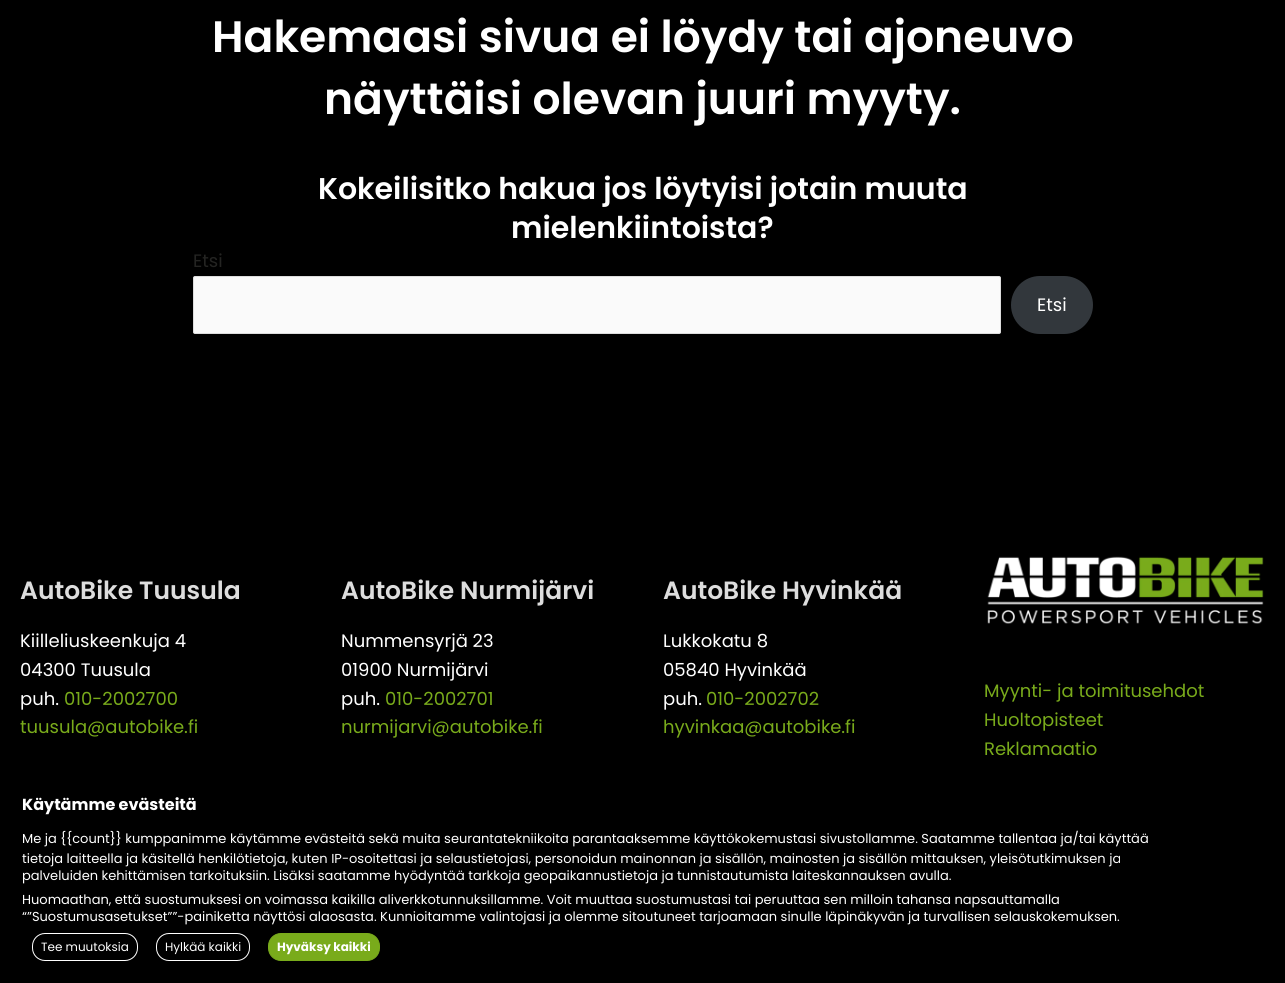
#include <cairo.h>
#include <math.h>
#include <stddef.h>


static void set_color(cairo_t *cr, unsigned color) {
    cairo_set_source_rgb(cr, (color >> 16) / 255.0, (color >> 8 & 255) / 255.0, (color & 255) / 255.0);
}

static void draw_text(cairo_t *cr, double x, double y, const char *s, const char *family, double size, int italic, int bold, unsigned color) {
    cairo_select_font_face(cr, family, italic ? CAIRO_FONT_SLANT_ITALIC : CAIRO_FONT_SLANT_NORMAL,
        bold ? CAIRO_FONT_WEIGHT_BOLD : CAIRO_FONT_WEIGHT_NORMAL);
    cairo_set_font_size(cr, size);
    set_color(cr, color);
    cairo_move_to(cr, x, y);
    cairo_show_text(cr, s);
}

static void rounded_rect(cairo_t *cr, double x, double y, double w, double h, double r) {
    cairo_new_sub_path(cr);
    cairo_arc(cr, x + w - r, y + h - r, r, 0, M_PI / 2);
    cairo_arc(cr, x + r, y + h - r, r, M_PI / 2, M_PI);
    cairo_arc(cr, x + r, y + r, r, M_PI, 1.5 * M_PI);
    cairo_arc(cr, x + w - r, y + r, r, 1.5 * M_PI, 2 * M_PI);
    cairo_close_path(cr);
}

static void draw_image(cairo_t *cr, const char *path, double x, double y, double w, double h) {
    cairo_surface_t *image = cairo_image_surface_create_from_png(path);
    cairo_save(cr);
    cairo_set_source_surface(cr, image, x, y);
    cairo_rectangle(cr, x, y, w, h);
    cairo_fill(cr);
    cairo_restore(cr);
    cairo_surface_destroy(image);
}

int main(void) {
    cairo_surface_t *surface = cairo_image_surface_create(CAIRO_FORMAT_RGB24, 1285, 983);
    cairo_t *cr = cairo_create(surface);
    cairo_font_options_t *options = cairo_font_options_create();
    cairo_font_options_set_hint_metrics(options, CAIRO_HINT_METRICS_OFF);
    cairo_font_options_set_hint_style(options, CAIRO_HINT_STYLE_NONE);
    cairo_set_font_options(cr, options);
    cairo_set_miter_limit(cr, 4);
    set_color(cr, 0x000000);
    cairo_paint(cr);
    draw_text(cr, 212, 52, "Hakemaasi sivua ei löydy tai ajoneuvo", "Poppins SemiBold", 44, 0, 0, 0xFFFFFF);
    draw_text(cr, 324, 114, "näyttäisi olevan juuri myyty.", "Poppins SemiBold", 44, 0, 0, 0xFFFFFF);
    draw_text(cr, 318, 199, "Kokeilisitko hakua jos löytyisi jotain muuta", "Poppins SemiBold", 30, 0, 0, 0xFFFFFF);
    draw_text(cr, 511, 238, "mielenkiintoista?", "Poppins SemiBold", 30, 0, 0, 0xFFFFFF);
    draw_text(cr, 193, 267, "Etsi", "Poppins", 18, 0, 0, 0x242422);
    set_color(cr, 0xFAFAFA);
    rounded_rect(cr, 193.5, 276.5, 807, 57, 1.5);
    cairo_fill_preserve(cr);
    set_color(cr, 0xDDDDDD);
    cairo_set_line_width(cr, 1);
    cairo_stroke(cr);
    set_color(cr, 0x32373C);
    rounded_rect(cr, 1011, 276, 82, 58, 29);
    cairo_fill(cr);
    draw_text(cr, 1037, 311, "Etsi", "Poppins", 18, 0, 0, 0xFFFFFF);
    draw_text(cr, 20, 599, "AutoBike Tuusula", "Poppins SemiBold", 25, 0, 0, 0xDDDDDD);
    draw_text(cr, 20, 647, "Kiilleliuskeenkuja 4", "Poppins", 18, 0, 0, 0xFFFFFF);
    draw_text(cr, 20, 676, "04300 Tuusula", "Poppins", 18, 0, 0, 0xFFFFFF);
    draw_text(cr, 20, 705, "puh.", "Poppins", 18, 0, 0, 0xFFFFFF);
    draw_text(cr, 64, 705, "010-2002700", "Poppins", 18, 0, 0, 0x79AB1B);
    draw_text(cr, 20, 733, "tuusula@autobike.fi", "Poppins", 18, 0, 0, 0x79AB1B);
    draw_text(cr, 341, 599, "AutoBike Nurmijärvi", "Poppins SemiBold", 25, 0, 0, 0xDDDDDD);
    draw_text(cr, 341, 647, "Nummensyrjä 23", "Poppins", 18, 0, 0, 0xFFFFFF);
    draw_text(cr, 341, 676, "01900 Nurmijärvi", "Poppins", 18, 0, 0, 0xFFFFFF);
    draw_text(cr, 341, 705, "puh.", "Poppins", 18, 0, 0, 0xFFFFFF);
    draw_text(cr, 385, 705, "010-2002701", "Poppins", 18, 0, 0, 0x79AB1B);
    draw_text(cr, 341, 733, "nurmijarvi@autobike.fi", "Poppins", 18, 0, 0, 0x79AB1B);
    draw_text(cr, 663, 599, "AutoBike Hyvinkää", "Poppins SemiBold", 25, 0, 0, 0xDDDDDD);
    draw_text(cr, 663, 647, "Lukkokatu 8", "Poppins", 18, 0, 0, 0xFFFFFF);
    draw_text(cr, 663, 676, "05840 Hyvinkää", "Poppins", 18, 0, 0, 0xFFFFFF);
    draw_text(cr, 663, 705, "puh.", "Poppins", 18, 0, 0, 0xFFFFFF);
    draw_text(cr, 706, 705, "010-2002702", "Poppins", 18, 0, 0, 0x79AB1B);
    draw_text(cr, 663, 733, "hyvinkaa@autobike.fi", "Poppins", 18, 0, 0, 0x79AB1B);
    draw_image(cr, "assets/img1.png", 987, 556, 277, 68);
    draw_text(cr, 984, 697, "Myynti- ja toimitusehdot", "Poppins", 18, 0, 0, 0x79AB1B);
    draw_text(cr, 984, 726, "Huoltopisteet", "Poppins", 18, 0, 0, 0x79AB1B);
    draw_text(cr, 984, 755, "Reklamaatio", "Poppins", 18, 0, 0, 0x79AB1B);
    draw_text(cr, 22, 810, "Käytämme evästeitä", "Poppins", 16, 0, 1, 0xFFFFFF);
    draw_text(cr, 22, 843, "Me ja {{count}} kumppanimme käytämme evästeitä sekä muita seurantatekniikoita parantaaksemme käyttökokemustasi sivustollamme. Saatamme tallentaa ja/tai käyttää", "Poppins", 13, 0, 0, 0xFFFFFF);
    draw_text(cr, 22, 863, "tietoja laitteella ja käsitellä henkilötietoja, kuten IP-osoitettasi ja selaustietojasi, personoidun mainonnan ja sisällön, mainosten ja sisällön mittauksen, yleisötutkimuksen ja", "Poppins", 13, 0, 0, 0xFFFFFF);
    draw_text(cr, 22, 880, "palveluiden kehittämisen tarkoituksiin. Lisäksi saatamme hyödyntää tarkkoja geopaikannustietoja ja tunnistautumista laiteskannauksen avulla.", "Poppins", 13, 0, 0, 0xFFFFFF);
    draw_text(cr, 22, 904, "Huomaathan, että suostumuksesi on voimassa kaikilla aliverkkotunnuksillamme. Voit muuttaa suostumustasi tai peruuttaa sen milloin tahansa napsauttamalla", "Poppins", 13, 0, 0, 0xFFFFFF);
    draw_text(cr, 22, 921, "“”Suostumusasetukset””-painiketta näyttösi alaosasta. Kunnioitamme valintojasi ja olemme sitoutuneet tarjoamaan sinulle läpinäkyvän ja turvallisen selauskokemuksen.", "Poppins", 13, 0, 0, 0xFFFFFF);
    rounded_rect(cr, 32.5, 933.5, 105, 27, 12.5);
    cairo_stroke(cr);
    draw_text(cr, 41, 951, "Tee muutoksia", "Poppins", 12, 0, 0, 0xFFFFFF);
    rounded_rect(cr, 156.5, 933.5, 93, 27, 12.5);
    cairo_stroke(cr);
    draw_text(cr, 165, 951, "Hylkää kaikki", "Poppins", 12, 0, 0, 0xFFFFFF);
    set_color(cr, 0x79AB1B);
    rounded_rect(cr, 268.5, 933.5, 111, 27, 12.5);
    cairo_fill_preserve(cr);
    cairo_stroke(cr);
    draw_text(cr, 277, 951, "Hyväksy kaikki", "Poppins", 12, 0, 1, 0xFFFFFF);
    cairo_surface_write_to_png(surface, "output.png");
    cairo_font_options_destroy(options);
    cairo_destroy(cr);
    cairo_surface_destroy(surface);
    return 0;
}
